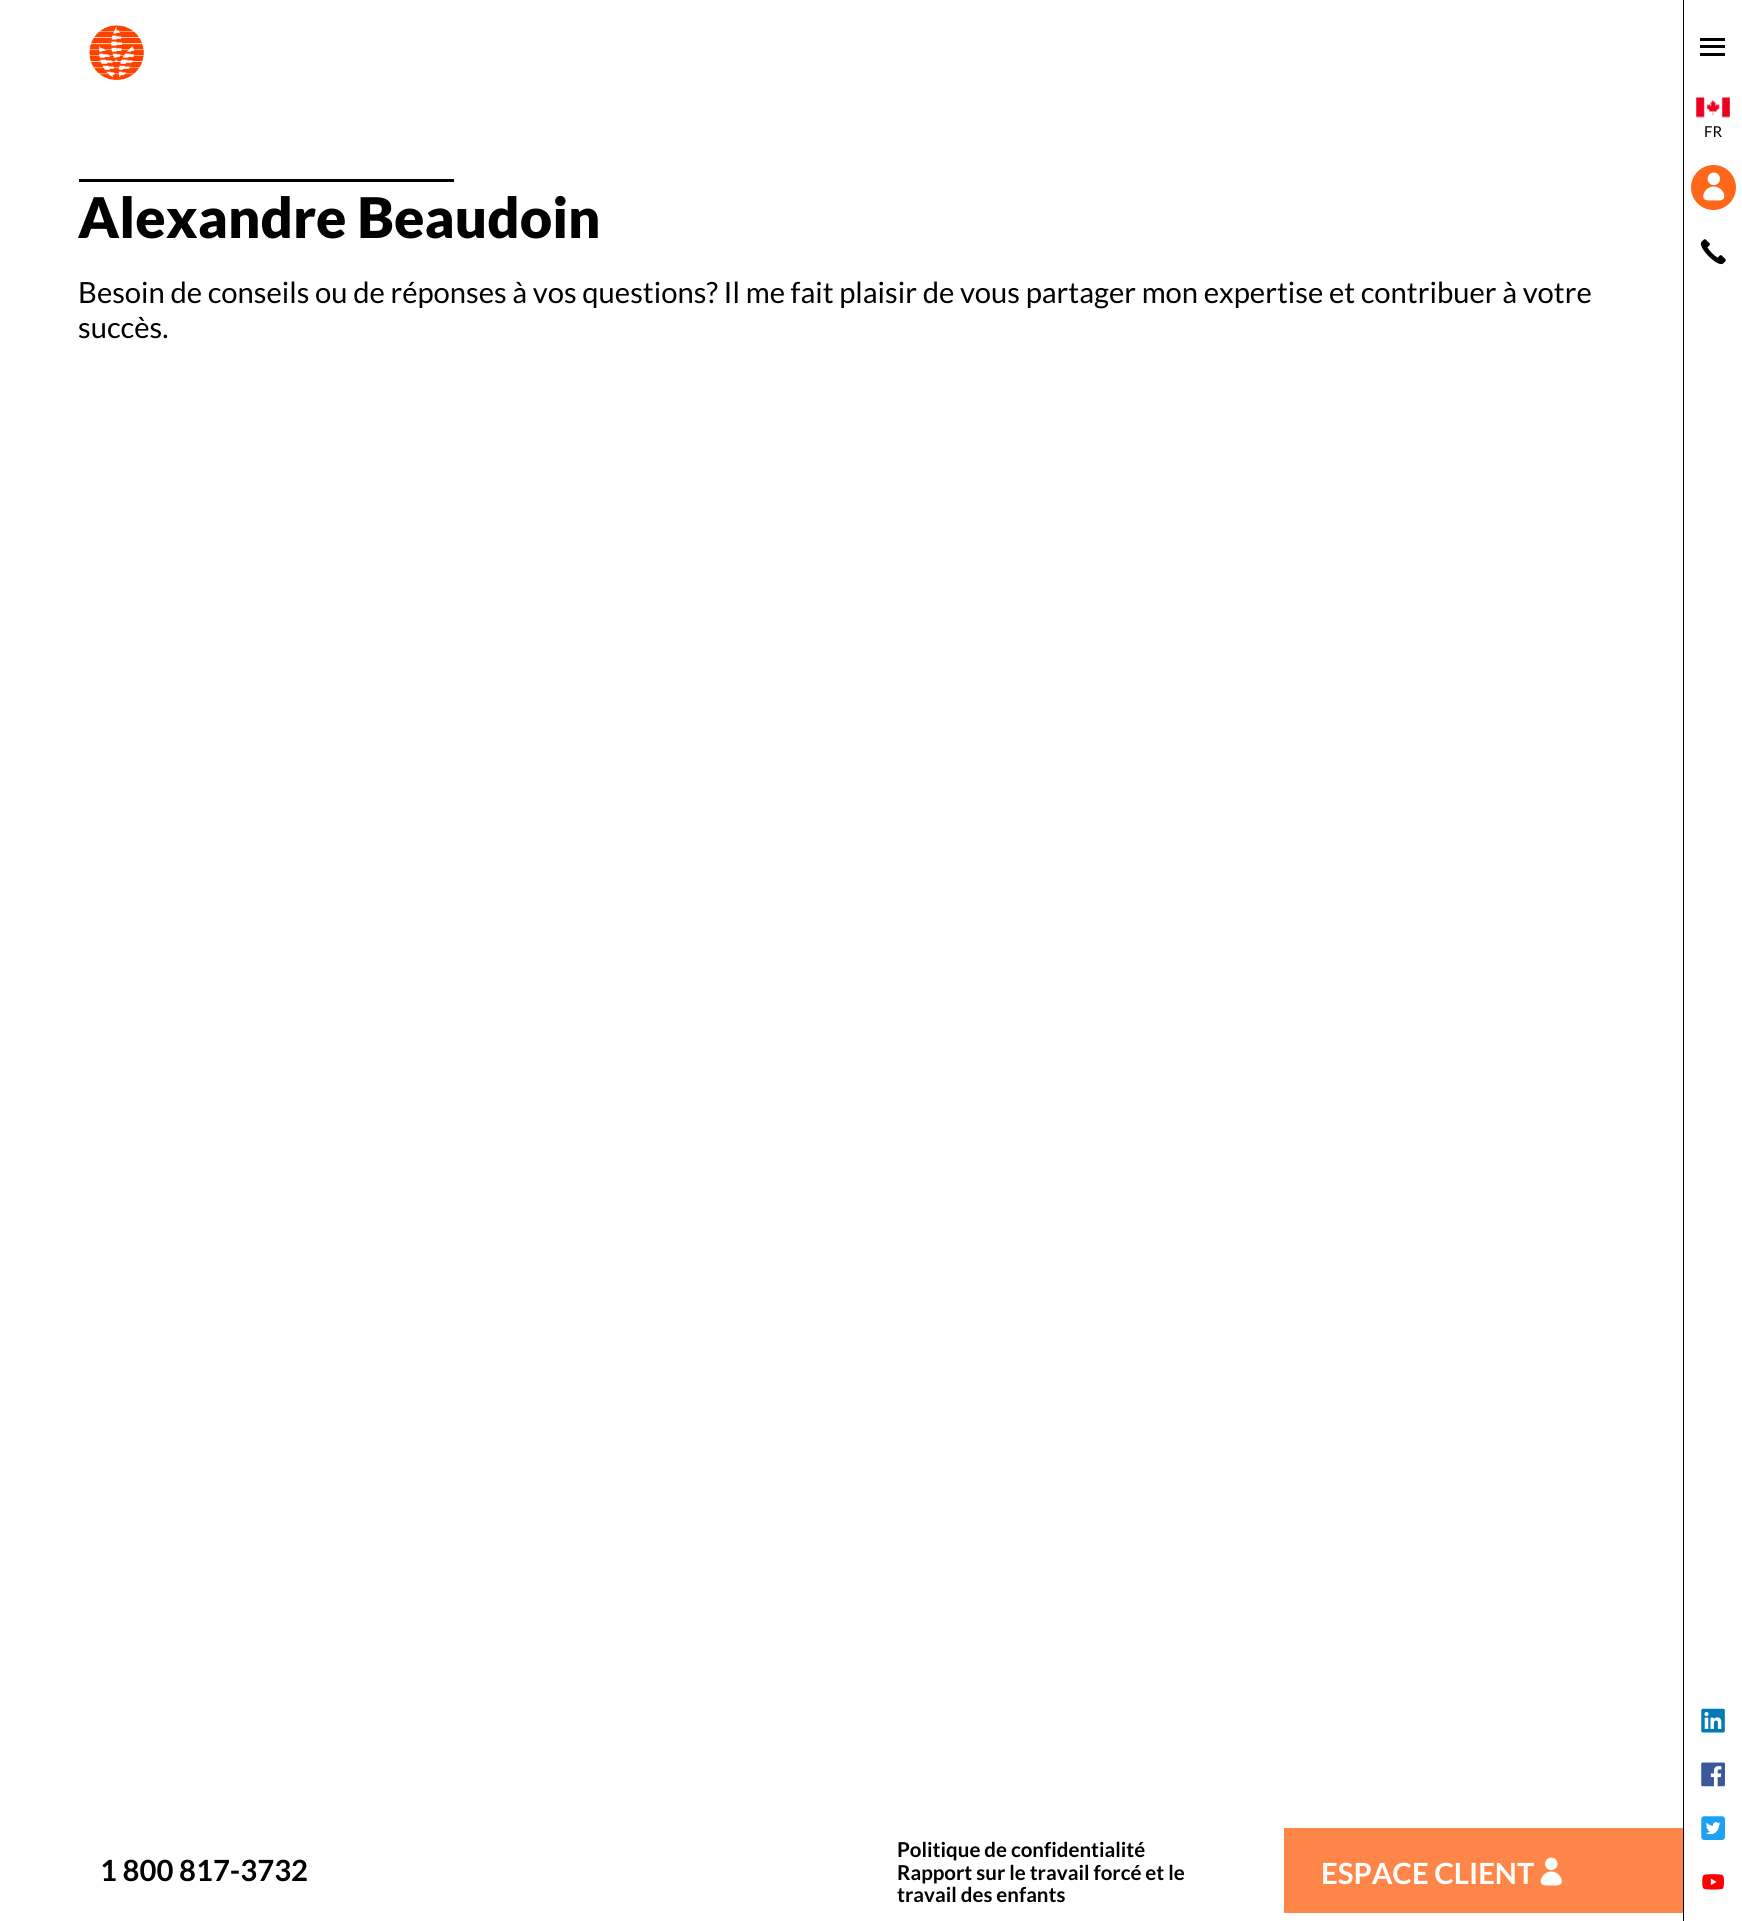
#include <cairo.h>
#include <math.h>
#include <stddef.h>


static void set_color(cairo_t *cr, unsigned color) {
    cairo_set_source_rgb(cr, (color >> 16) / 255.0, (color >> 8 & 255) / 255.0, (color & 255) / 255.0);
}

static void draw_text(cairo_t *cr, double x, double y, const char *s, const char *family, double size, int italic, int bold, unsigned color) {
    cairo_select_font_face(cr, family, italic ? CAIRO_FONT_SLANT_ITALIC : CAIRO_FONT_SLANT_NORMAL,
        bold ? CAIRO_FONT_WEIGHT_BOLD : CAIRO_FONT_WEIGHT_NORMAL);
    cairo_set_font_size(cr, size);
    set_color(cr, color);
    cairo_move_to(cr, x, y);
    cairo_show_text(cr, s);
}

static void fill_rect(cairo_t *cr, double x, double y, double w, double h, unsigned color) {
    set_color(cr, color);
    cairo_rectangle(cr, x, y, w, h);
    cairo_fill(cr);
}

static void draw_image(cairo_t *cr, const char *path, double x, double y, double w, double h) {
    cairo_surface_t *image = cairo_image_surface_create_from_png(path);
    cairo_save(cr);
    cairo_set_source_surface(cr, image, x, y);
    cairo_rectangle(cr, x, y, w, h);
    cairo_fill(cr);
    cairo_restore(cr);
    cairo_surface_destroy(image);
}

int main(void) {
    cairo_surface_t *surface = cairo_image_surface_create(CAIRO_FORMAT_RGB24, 1742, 1921);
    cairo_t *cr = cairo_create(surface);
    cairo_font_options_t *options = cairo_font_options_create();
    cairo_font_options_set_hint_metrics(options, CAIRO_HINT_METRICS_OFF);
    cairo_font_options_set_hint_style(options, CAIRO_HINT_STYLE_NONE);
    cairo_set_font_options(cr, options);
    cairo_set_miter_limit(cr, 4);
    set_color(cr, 0xFFFFFF);
    cairo_paint(cr);
    draw_image(cr, "assets/img1.png", 89, 25, 55, 55);
    fill_rect(cr, 1700, 45, 25, 3, 0x000000);
    fill_rect(cr, 1700, 38, 25, 3, 0x000000);
    fill_rect(cr, 1700, 53, 25, 3, 0x000000);
    fill_rect(cr, 1683, 0, 1, 1921, 0x000000);
    draw_image(cr, "assets/img2.png", 1696, 97, 34, 21);
    draw_text(cr, 1704, 137, "FR", "Lato", 15, 0, 0, 0x000000);
    set_color(cr, 0xFF671B);
    cairo_new_path(cr);
    cairo_arc(cr, 1713.5, 187.5, 22.5, 0, 2 * M_PI);
    cairo_fill(cr);
    draw_image(cr, "assets/img3.png", 1703, 172, 22, 29);
    draw_image(cr, "assets/img4.png", 1700, 239, 26, 26);
    draw_image(cr, "assets/img5.png", 1701, 1708, 24, 25);
    draw_image(cr, "assets/img6.png", 1701, 1762, 24, 25);
    draw_image(cr, "assets/img7.png", 1701, 1816, 24, 24);
    draw_image(cr, "assets/img8.png", 1702, 1874, 22, 16);
    fill_rect(cr, 79, 179, 375, 3, 0x000000);
    draw_text(cr, 78, 238, "Alexandre Beaudoin", "Lato Black", 56, 0, 0, 0x000000);
    draw_text(cr, 78, 303, "Besoin de conseils ou de réponses à vos questions? Il me fait plaisir de vous partager mon expertise et contribuer à votre", "Lato", 29.2, 0, 0, 0x000000);
    draw_text(cr, 78, 338, "succès.", "Lato", 29.2, 0, 0, 0x000000);
    draw_text(cr, 100, 1881, "1 800 817-3732", "Lato", 29.2, 0, 1, 0x000000);
    draw_text(cr, 897, 1857, "Politique de confidentialité", "Lato", 20.5, 0, 1, 0x000000);
    draw_text(cr, 897, 1880, "Rapport sur le travail forcé et le", "Lato", 20.5, 0, 1, 0x000000);
    draw_text(cr, 897, 1902, "travail des enfants", "Lato", 20.5, 0, 1, 0x000000);
    fill_rect(cr, 1284, 1828, 399, 85, 0xFF8549);
    draw_text(cr, 1321, 1884, "ESPACE CLIENT", "Lato", 29.2, 0, 1, 0xFFFFFF);
    draw_image(cr, "assets/img9.png", 1540, 1857, 22, 29);
    cairo_surface_write_to_png(surface, "output.png");
    cairo_font_options_destroy(options);
    cairo_destroy(cr);
    cairo_surface_destroy(surface);
    return 0;
}
